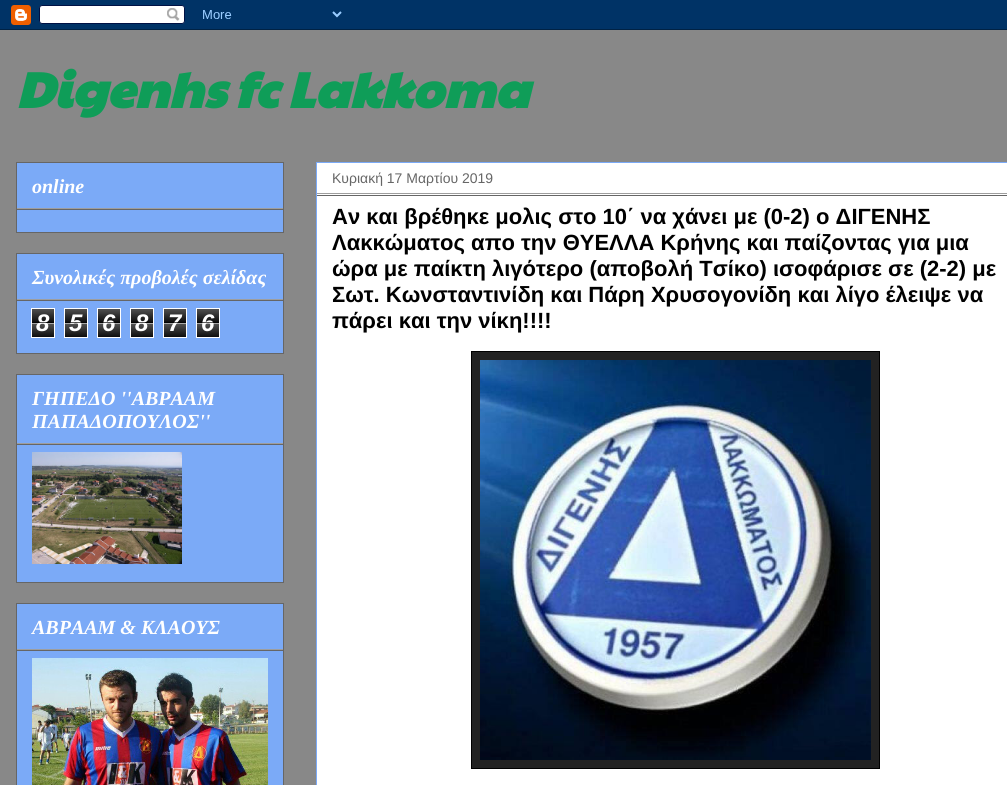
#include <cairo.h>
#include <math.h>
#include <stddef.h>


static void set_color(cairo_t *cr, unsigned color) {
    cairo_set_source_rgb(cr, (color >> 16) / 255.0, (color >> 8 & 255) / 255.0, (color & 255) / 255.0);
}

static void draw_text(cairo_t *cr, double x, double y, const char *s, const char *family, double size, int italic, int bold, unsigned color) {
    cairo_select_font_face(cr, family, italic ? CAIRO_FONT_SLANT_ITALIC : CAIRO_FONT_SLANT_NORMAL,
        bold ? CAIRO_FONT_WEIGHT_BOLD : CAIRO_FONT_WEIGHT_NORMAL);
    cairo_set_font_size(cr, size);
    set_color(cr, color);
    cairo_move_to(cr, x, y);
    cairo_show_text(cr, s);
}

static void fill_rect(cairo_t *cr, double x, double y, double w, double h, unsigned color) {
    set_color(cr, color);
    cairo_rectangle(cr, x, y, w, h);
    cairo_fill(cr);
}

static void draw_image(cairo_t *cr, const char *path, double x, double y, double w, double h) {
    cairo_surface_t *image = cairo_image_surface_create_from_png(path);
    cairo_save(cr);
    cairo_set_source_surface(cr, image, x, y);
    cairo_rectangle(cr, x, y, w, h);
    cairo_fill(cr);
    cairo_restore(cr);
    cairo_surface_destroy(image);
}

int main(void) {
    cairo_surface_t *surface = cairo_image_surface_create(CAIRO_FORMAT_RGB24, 1007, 785);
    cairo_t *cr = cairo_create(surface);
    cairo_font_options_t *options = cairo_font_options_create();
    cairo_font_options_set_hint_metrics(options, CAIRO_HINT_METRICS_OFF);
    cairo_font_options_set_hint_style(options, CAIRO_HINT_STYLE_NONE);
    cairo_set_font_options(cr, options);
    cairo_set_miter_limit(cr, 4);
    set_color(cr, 0x888888);
    cairo_paint(cr);
    draw_image(cr, "assets/img1.png", 0, 0, 1007, 30);
    draw_text(cr, 16, 108, "Digenhs fc Lakkoma", "Paytone One", 50, 1, 1, 0x0F9D58);
    set_color(cr, 0x7BAAF7);
    cairo_rectangle(cr, 16.5, 162.5, 267, 70);
    cairo_fill_preserve(cr);
    set_color(cr, 0x666666);
    cairo_set_line_width(cr, 1);
    cairo_stroke(cr);
    fill_rect(cr, 17, 208, 266, 1, 0x9E9E9E);
    draw_text(cr, 32, 193, "online", "Liberation Serif", 20, 1, 1, 0xFFFFFF);
    fill_rect(cr, 17, 209, 266, 1, 0x666666);
    set_color(cr, 0x7BAAF7);
    cairo_rectangle(cr, 16.5, 253.5, 267, 100);
    cairo_fill_preserve(cr);
    set_color(cr, 0x666666);
    cairo_stroke(cr);
    fill_rect(cr, 17, 299, 266, 1, 0x9E9E9E);
    draw_text(cr, 32, 284, "Συνολικές προβολές σελίδας", "Liberation Serif", 20, 1, 1, 0xFFFFFF);
    fill_rect(cr, 17, 300, 266, 1, 0x666666);
    draw_image(cr, "assets/img2.png", 32, 309, 22, 28);
    cairo_rectangle(cr, 31.5, 308.5, 23, 29);
    set_color(cr, 0xFFFFFF);
    cairo_stroke(cr);
    draw_text(cr, 36, 331, "8", "Liberation Sans", 24, 1, 1, 0xFFFFFF);
    cairo_set_source_rgba(cr, 0, 0, 0, 0.65);
    cairo_rectangle(cr, 32, 322, 22, 1);
    cairo_fill(cr);
    cairo_set_source_rgba(cr, 1, 1, 1, 0.65);
    cairo_rectangle(cr, 32, 323, 22, 1);
    cairo_fill(cr);
    draw_image(cr, "assets/img2.png", 65, 309, 22, 28);
    cairo_rectangle(cr, 64.5, 308.5, 23, 29);
    set_color(cr, 0xFFFFFF);
    cairo_stroke(cr);
    draw_text(cr, 69, 331, "5", "Liberation Sans", 24, 1, 1, 0xFFFFFF);
    cairo_set_source_rgba(cr, 0, 0, 0, 0.65);
    cairo_rectangle(cr, 65, 322, 22, 1);
    cairo_fill(cr);
    cairo_set_source_rgba(cr, 1, 1, 1, 0.65);
    cairo_rectangle(cr, 65, 323, 22, 1);
    cairo_fill(cr);
    draw_image(cr, "assets/img2.png", 98, 309, 22, 28);
    cairo_rectangle(cr, 97.5, 308.5, 23, 29);
    set_color(cr, 0xFFFFFF);
    cairo_stroke(cr);
    draw_text(cr, 102, 331, "6", "Liberation Sans", 24, 1, 1, 0xFFFFFF);
    cairo_set_source_rgba(cr, 0, 0, 0, 0.65);
    cairo_rectangle(cr, 98, 322, 22, 1);
    cairo_fill(cr);
    cairo_set_source_rgba(cr, 1, 1, 1, 0.65);
    cairo_rectangle(cr, 98, 323, 22, 1);
    cairo_fill(cr);
    draw_image(cr, "assets/img2.png", 131, 309, 22, 28);
    cairo_rectangle(cr, 130.5, 308.5, 23, 29);
    set_color(cr, 0xFFFFFF);
    cairo_stroke(cr);
    draw_text(cr, 135, 331, "8", "Liberation Sans", 24, 1, 1, 0xFFFFFF);
    cairo_set_source_rgba(cr, 0, 0, 0, 0.65);
    cairo_rectangle(cr, 131, 322, 22, 1);
    cairo_fill(cr);
    cairo_set_source_rgba(cr, 1, 1, 1, 0.65);
    cairo_rectangle(cr, 131, 323, 22, 1);
    cairo_fill(cr);
    draw_image(cr, "assets/img2.png", 164, 309, 22, 28);
    cairo_rectangle(cr, 163.5, 308.5, 23, 29);
    set_color(cr, 0xFFFFFF);
    cairo_stroke(cr);
    draw_text(cr, 168, 331, "7", "Liberation Sans", 24, 1, 1, 0xFFFFFF);
    cairo_set_source_rgba(cr, 0, 0, 0, 0.65);
    cairo_rectangle(cr, 164, 322, 22, 1);
    cairo_fill(cr);
    cairo_set_source_rgba(cr, 1, 1, 1, 0.65);
    cairo_rectangle(cr, 164, 323, 22, 1);
    cairo_fill(cr);
    draw_image(cr, "assets/img2.png", 197, 309, 22, 28);
    cairo_rectangle(cr, 196.5, 308.5, 23, 29);
    set_color(cr, 0xFFFFFF);
    cairo_stroke(cr);
    draw_text(cr, 201, 331, "6", "Liberation Sans", 24, 1, 1, 0xFFFFFF);
    cairo_set_source_rgba(cr, 0, 0, 0, 0.65);
    cairo_rectangle(cr, 197, 322, 22, 1);
    cairo_fill(cr);
    cairo_set_source_rgba(cr, 1, 1, 1, 0.65);
    cairo_rectangle(cr, 197, 323, 22, 1);
    cairo_fill(cr);
    set_color(cr, 0x7BAAF7);
    cairo_rectangle(cr, 16.5, 374.5, 267, 208);
    cairo_fill_preserve(cr);
    set_color(cr, 0x666666);
    cairo_stroke(cr);
    fill_rect(cr, 17, 443, 266, 1, 0x9E9E9E);
    draw_text(cr, 32, 405, "ΓΗΠΕΔΟ ''ΑΒΡΑΑΜ", "Liberation Serif", 20, 1, 1, 0xFFFFFF);
    draw_text(cr, 32, 428, "ΠΑΠΑΔΟΠΟΥΛΟΣ''", "Liberation Serif", 20, 1, 1, 0xFFFFFF);
    fill_rect(cr, 17, 444, 266, 1, 0x666666);
    draw_image(cr, "assets/img3.png", 32, 452, 150, 112);
    set_color(cr, 0x7BAAF7);
    cairo_rectangle(cr, 16.5, 603.5, 267, 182);
    cairo_fill_preserve(cr);
    set_color(cr, 0x666666);
    cairo_stroke(cr);
    fill_rect(cr, 17, 649, 266, 1, 0x9E9E9E);
    draw_text(cr, 32, 634, "ΑΒΡΑΑΜ & ΚΛΑΟΥΣ", "Liberation Serif", 20, 1, 1, 0xFFFFFF);
    fill_rect(cr, 17, 650, 266, 1, 0x666666);
    draw_image(cr, "assets/img4.png", 32, 658, 236, 127);
    set_color(cr, 0xFFFFFF);
    cairo_rectangle(cr, 316.5, 162.5, 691, 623);
    cairo_fill_preserve(cr);
    set_color(cr, 0x7BAAF7);
    cairo_stroke(cr);
    fill_rect(cr, 317, 193, 690, 1, 0x9E9E9E);
    draw_text(cr, 332, 183, "Κυριακή 17 Μαρτίου 2019", "Liberation Sans", 14, 0, 0, 0x666666);
    fill_rect(cr, 317, 195, 690, 1, 0x666666);
    draw_text(cr, 332, 224, "Αν και βρέθηκε μολις στο 10΄ να χάνει με (0-2) ο ΔΙΓΕΝΗΣ", "Liberation Sans", 22, 0, 1, 0x000000);
    draw_text(cr, 332, 250, "Λακκώματος απο την ΘΥΕΛΛΑ Κρήνης και παίζοντας για μια", "Liberation Sans", 22, 0, 1, 0x000000);
    draw_text(cr, 332, 276, "ώρα με παίκτη λιγότερο (αποβολή Τσίκο) ισοφάρισε σε (2-2) με", "Liberation Sans", 22, 0, 1, 0x000000);
    draw_text(cr, 332, 302, "Σωτ. Κωνσταντινίδη και Πάρη Χρυσογονίδη και λίγο έλειψε να", "Liberation Sans", 22, 0, 1, 0x000000);
    draw_text(cr, 332, 328, "πάρει και την νίκη!!!!", "Liberation Sans", 22, 0, 1, 0x000000);
    set_color(cr, 0x222222);
    cairo_rectangle(cr, 471.5, 351.5, 408, 417);
    cairo_fill_preserve(cr);
    set_color(cr, 0x000000);
    cairo_stroke(cr);
    draw_image(cr, "assets/img5.png", 480, 360, 391, 400);
    cairo_surface_write_to_png(surface, "output.png");
    cairo_font_options_destroy(options);
    cairo_destroy(cr);
    cairo_surface_destroy(surface);
    return 0;
}
